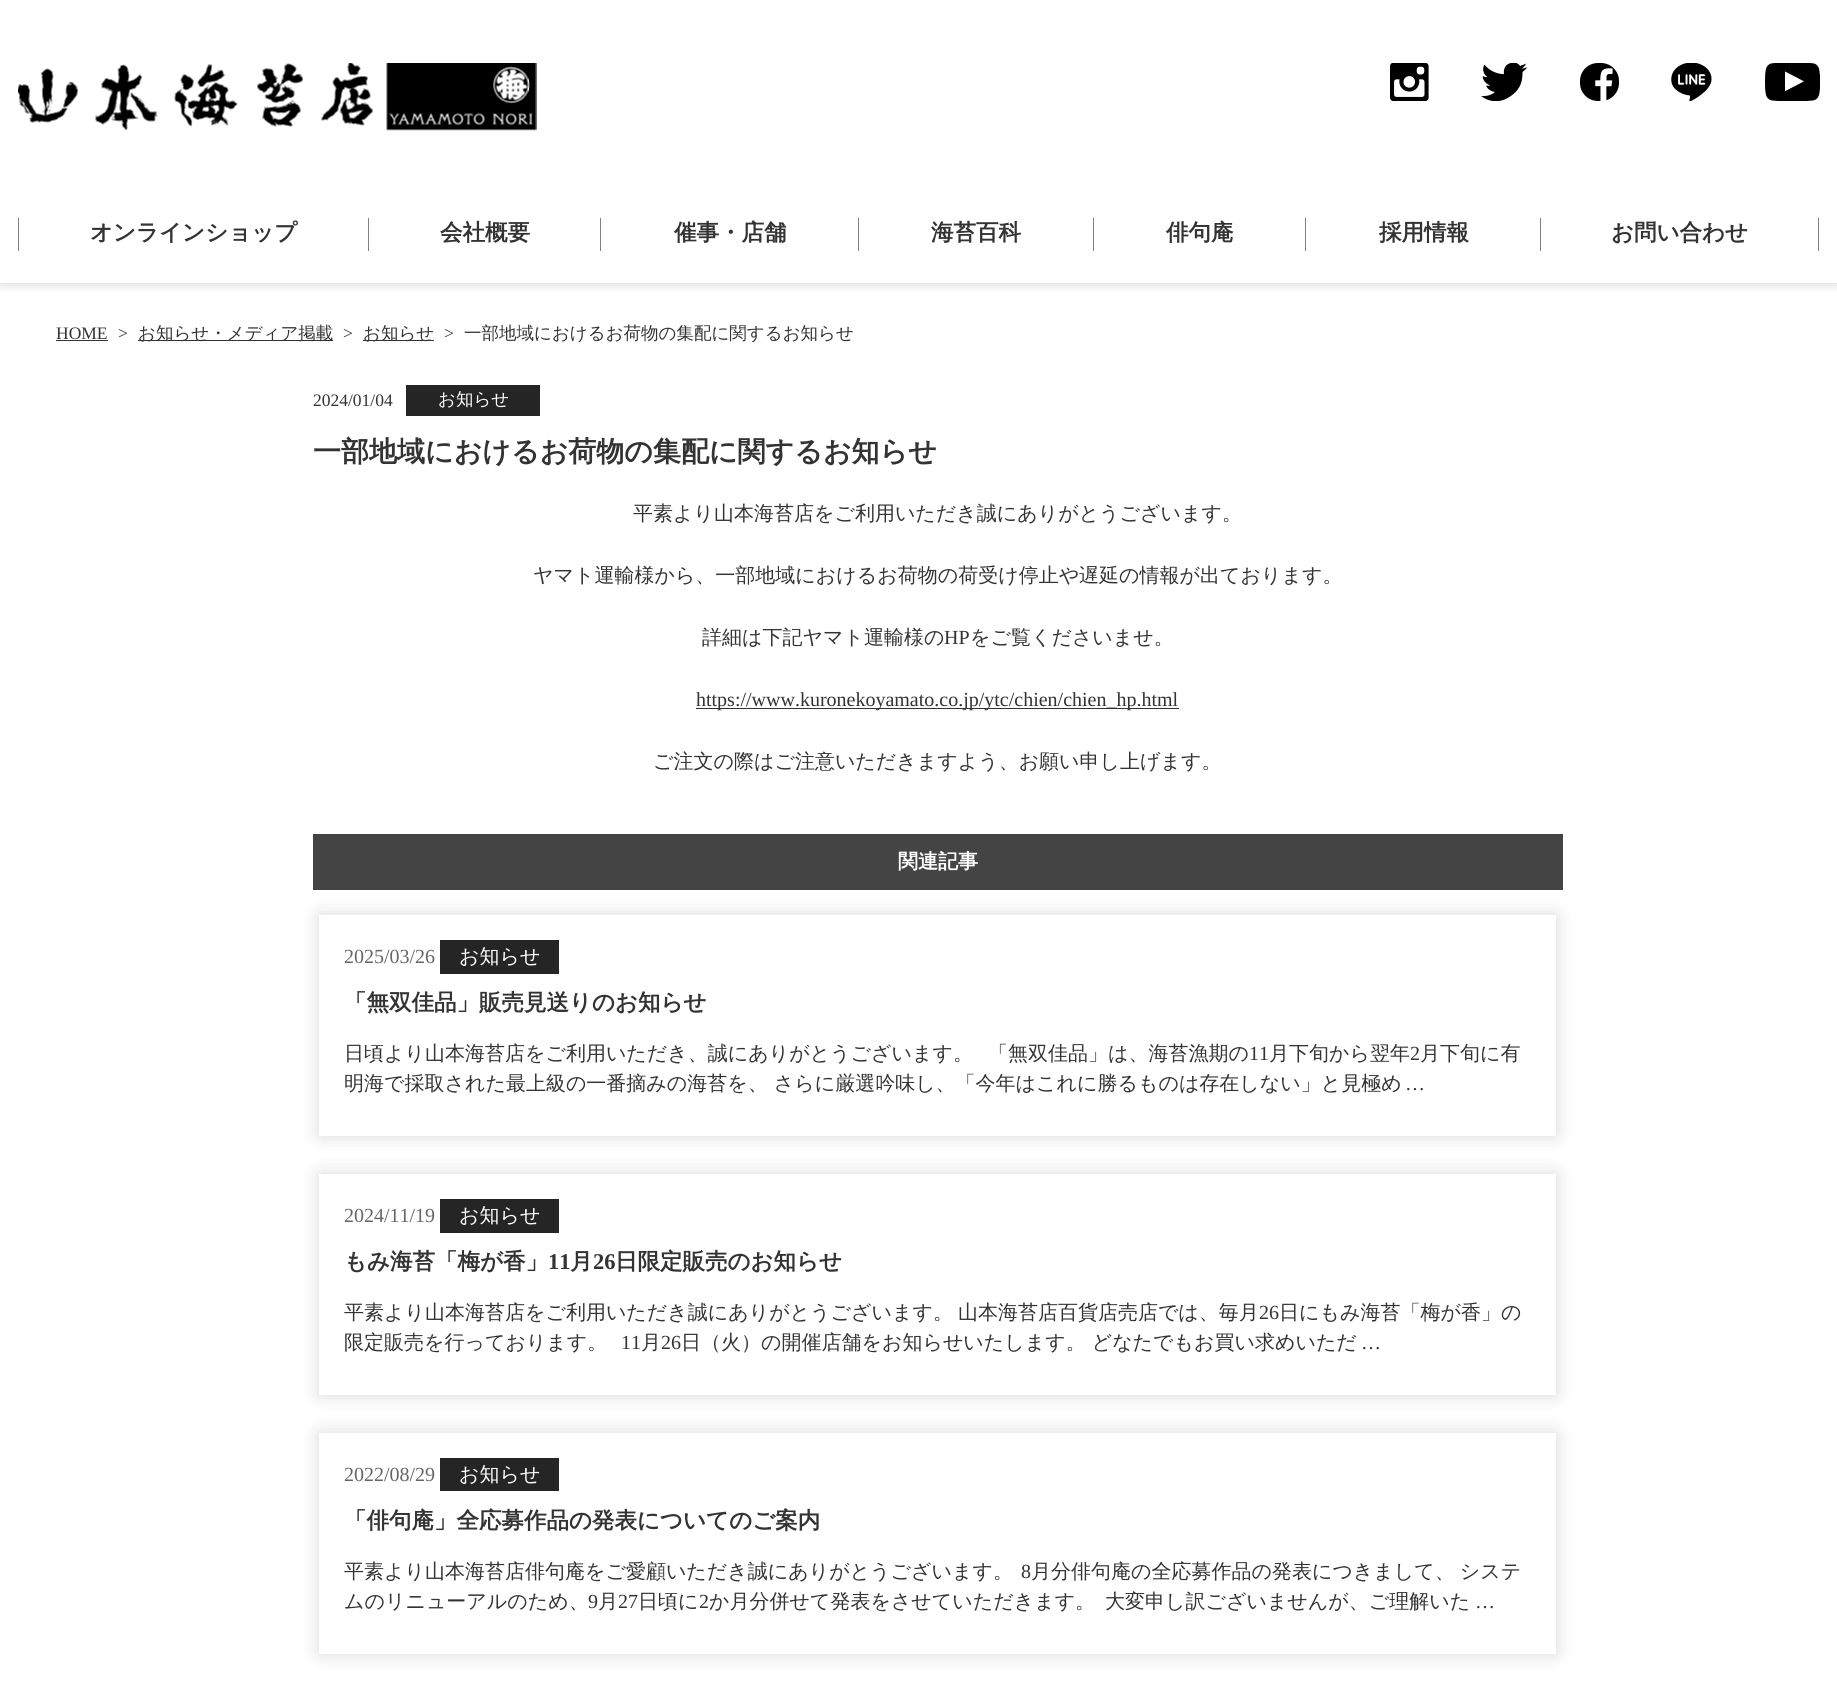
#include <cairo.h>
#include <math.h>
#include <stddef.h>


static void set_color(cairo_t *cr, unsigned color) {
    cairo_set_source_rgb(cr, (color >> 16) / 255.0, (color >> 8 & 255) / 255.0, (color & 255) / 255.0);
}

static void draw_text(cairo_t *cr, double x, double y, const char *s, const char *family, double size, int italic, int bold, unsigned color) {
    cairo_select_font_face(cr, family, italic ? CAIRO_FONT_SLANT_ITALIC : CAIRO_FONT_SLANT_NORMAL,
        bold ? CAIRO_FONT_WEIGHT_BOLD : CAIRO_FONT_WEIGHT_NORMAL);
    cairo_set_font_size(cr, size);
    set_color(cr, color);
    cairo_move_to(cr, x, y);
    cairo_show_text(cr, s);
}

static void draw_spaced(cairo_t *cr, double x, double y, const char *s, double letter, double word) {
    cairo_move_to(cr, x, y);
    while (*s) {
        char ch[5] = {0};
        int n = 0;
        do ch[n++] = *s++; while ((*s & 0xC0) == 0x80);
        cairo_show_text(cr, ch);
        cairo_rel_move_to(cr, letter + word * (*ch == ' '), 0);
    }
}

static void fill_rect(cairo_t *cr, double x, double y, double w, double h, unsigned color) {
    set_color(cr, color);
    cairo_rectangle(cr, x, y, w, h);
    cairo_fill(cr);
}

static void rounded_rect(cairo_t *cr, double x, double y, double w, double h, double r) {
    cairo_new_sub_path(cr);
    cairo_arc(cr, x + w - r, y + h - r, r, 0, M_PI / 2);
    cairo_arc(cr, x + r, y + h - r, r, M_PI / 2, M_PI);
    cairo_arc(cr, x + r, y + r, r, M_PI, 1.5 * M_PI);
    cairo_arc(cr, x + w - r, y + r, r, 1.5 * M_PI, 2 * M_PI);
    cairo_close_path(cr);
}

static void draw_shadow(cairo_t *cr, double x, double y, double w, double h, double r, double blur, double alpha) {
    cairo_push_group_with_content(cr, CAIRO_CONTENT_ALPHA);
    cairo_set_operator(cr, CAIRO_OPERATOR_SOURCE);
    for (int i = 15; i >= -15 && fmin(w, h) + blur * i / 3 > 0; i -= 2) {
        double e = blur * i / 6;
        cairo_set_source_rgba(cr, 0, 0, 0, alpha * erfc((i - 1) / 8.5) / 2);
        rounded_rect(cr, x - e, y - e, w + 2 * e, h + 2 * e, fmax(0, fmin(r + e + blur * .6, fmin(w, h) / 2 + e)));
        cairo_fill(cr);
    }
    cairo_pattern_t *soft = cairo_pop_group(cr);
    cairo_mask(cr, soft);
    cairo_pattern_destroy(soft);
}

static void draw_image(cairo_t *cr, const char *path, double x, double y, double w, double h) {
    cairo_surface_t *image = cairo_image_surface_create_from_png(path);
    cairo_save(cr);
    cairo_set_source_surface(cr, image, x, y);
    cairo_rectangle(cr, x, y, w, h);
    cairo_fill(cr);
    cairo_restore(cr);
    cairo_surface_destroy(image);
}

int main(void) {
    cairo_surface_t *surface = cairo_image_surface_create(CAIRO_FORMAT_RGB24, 1837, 1690);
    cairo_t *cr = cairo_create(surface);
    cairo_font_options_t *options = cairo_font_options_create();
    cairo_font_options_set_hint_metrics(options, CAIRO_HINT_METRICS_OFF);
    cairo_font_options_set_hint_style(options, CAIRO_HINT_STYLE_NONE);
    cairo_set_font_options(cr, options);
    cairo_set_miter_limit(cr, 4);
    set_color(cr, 0xFFFFFF);
    cairo_paint(cr);
    set_color(cr, 0x000000);
    draw_shadow(cr, 0, 0, 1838, 283, 0, 6, 0.2);
    fill_rect(cr, 0, 0, 1837, 283, 0xFFFFFF);
    draw_image(cr, "assets/img1.png", 18, 63, 519, 68);
    draw_image(cr, "assets/img2.png", 1390, 63, 39, 38);
    draw_image(cr, "assets/img3.png", 1481, 63, 47, 38);
    draw_image(cr, "assets/img4.png", 1580, 63, 39, 38);
    draw_image(cr, "assets/img5.png", 1671, 63, 41, 38);
    draw_image(cr, "assets/img6.png", 1765, 63, 55, 38);
    fill_rect(cr, 18, 218, 1, 33, 0x808080);
    draw_text(cr, 90, 240, "オンラインショップ", "WenQuanYi Zen Hei", 22.5, 0, 1, 0x333333);
    fill_rect(cr, 368, 218, 1, 33, 0x808080);
    draw_text(cr, 440, 240, "会社概要", "WenQuanYi Zen Hei", 22.5, 0, 1, 0x333333);
    fill_rect(cr, 600, 218, 1, 33, 0x808080);
    draw_text(cr, 674, 240, "催事・店舗", "WenQuanYi Zen Hei", 22.5, 0, 1, 0x333333);
    fill_rect(cr, 858, 218, 1, 33, 0x808080);
    draw_text(cr, 931, 240, "海苔百科", "WenQuanYi Zen Hei", 22.5, 0, 1, 0x333333);
    fill_rect(cr, 1093, 218, 1, 33, 0x808080);
    draw_text(cr, 1166, 240, "俳句庵", "WenQuanYi Zen Hei", 22.5, 0, 1, 0x333333);
    fill_rect(cr, 1305, 218, 1, 33, 0x808080);
    draw_text(cr, 1379, 240, "採用情報", "WenQuanYi Zen Hei", 22.5, 0, 1, 0x333333);
    fill_rect(cr, 1540, 218, 1, 33, 0x808080);
    draw_text(cr, 1611, 240, "お問い合わせ", "WenQuanYi Zen Hei", 22.5, 0, 1, 0x333333);
    fill_rect(cr, 1818, 218, 1, 33, 0x808080);
    draw_text(cr, 56, 339, "HOME", "Liberation Serif", 17.5, 0, 0, 0x333333);
    fill_rect(cr, 56, 340, 52, 1, 0x333333);
    draw_text(cr, 118, 339, ">", "Liberation Serif", 17.5, 0, 0, 0x333333);
    fill_rect(cr, 138, 340, 195, 1, 0x333333);
    draw_text(cr, 138, 339, "お知らせ・メディア掲載", "WenQuanYi Zen Hei Medium", 17.5, 0, 0, 0x333333);
    draw_text(cr, 343, 339, ">", "Liberation Serif", 17.5, 0, 0, 0x333333);
    fill_rect(cr, 363, 340, 71, 1, 0x333333);
    draw_text(cr, 363, 339, "お知らせ", "WenQuanYi Zen Hei Medium", 17.5, 0, 0, 0x333333);
    draw_text(cr, 444, 339, ">", "Liberation Serif", 17.5, 0, 0, 0x333333);
    draw_text(cr, 464, 339, "一部地域におけるお荷物の集配に関するお知らせ", "WenQuanYi Zen Hei Medium", 17.5, 0, 0, 0x333333);
    fill_rect(cr, 313, 834, 1250, 56, 0x444444);
    draw_text(cr, 313, 406, "2024/01/04", "Liberation Serif", 17.5, 0, 0, 0x333333);
    fill_rect(cr, 406, 385, 134, 31, 0x252525);
    draw_text(cr, 438, 405, "お知らせ", "WenQuanYi Zen Hei Medium", 17.5, 0, 0, 0xFFFFFF);
    draw_text(cr, 313, 461, "一部地域におけるお荷物の集配に関するお知らせ", "WenQuanYi Zen Hei", 28, 0, 1, 0x333333);
    draw_text(cr, 633, 520, "平素より山本海苔店をご利用いただき誠にありがとうございます。", "WenQuanYi Zen Hei Medium", 20, 0, 0, 0x333333);
    draw_text(cr, 533, 582, "ヤマト運輸様から、一部地域におけるお荷物の荷受け停止や遅延の情報が出ております。", "WenQuanYi Zen Hei Medium", 20, 0, 0, 0x333333);
    draw_text(cr, 702, 644, "詳細は下記ヤマト運輸様の", "WenQuanYi Zen Hei Medium", 20, 0, 0, 0x333333);
    draw_text(cr, 944, 644, "HP", "Liberation Serif", 20, 0, 0, 0x333333);
    draw_text(cr, 970, 644, "をご覧くださいませ。", "WenQuanYi Zen Hei Medium", 20, 0, 0, 0x333333);
    fill_rect(cr, 696, 708, 483, 1, 0x333333);
    draw_text(cr, 696, 706, "https://www.kuronekoyamato.co.jp/ytc/chien/chien_hp.html", "Liberation Serif", 20, 0, 0, 0x333333);
    draw_text(cr, 653, 768, "ご注文の際はご注意いただきますよう、お願い申し上げます。", "WenQuanYi Zen Hei Medium", 20, 0, 0, 0x333333);
    draw_text(cr, 898, 868, "関連記事", "WenQuanYi Zen Hei", 20, 0, 1, 0xFFFFFF);
    cairo_save(cr);
    cairo_set_fill_rule(cr, CAIRO_FILL_RULE_EVEN_ODD);
    cairo_new_path(cr);
    cairo_move_to(cr, 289, 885);
    cairo_line_to(cr, 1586, 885);
    cairo_line_to(cr, 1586, 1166);
    cairo_line_to(cr, 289, 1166);
    cairo_close_path(cr);
    cairo_move_to(cr, 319, 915);
    cairo_line_to(cr, 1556, 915);
    cairo_line_to(cr, 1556, 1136);
    cairo_line_to(cr, 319, 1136);
    cairo_close_path(cr);
    cairo_clip(cr);
    set_color(cr, 0x000000);
    draw_shadow(cr, 319, 915, 1237, 221, 0, 9.5, 0.15);
    cairo_restore(cr);
    draw_text(cr, 344, 963, "2025/03/26", "Liberation Serif", 20, 0, 0, 0x666666);
    fill_rect(cr, 440, 940, 119, 34, 0x252525);
    draw_text(cr, 459, 963, "お知らせ", "WenQuanYi Zen Hei Medium", 20, 0, 0, 0xFFFFFF);
    draw_text(cr, 344, 1010, "「無双佳品」販売見送りのお知らせ", "WenQuanYi Zen Hei", 22.5, 0, 1, 0x333333);
    draw_text(cr, 344, 1060, "日頃より山本海苔店をご利用いただき、誠にありがとうございます。", "WenQuanYi Zen Hei Medium", 20, 0, 0, 0x333333);
    draw_text(cr, 988, 1060, "「無双佳品」は、海苔漁期の", "WenQuanYi Zen Hei Medium", 20, 0, 0, 0x333333);
    draw_text(cr, 1249, 1060, "11", "Liberation Serif", 20, 0, 0, 0x333333);
    draw_text(cr, 1269, 1060, "月下旬から翌年", "WenQuanYi Zen Hei Medium", 20, 0, 0, 0x333333);
    draw_text(cr, 1410, 1060, "2", "Liberation Serif", 20, 0, 0, 0x333333);
    draw_text(cr, 1420, 1060, "月下旬に有", "WenQuanYi Zen Hei Medium", 20, 0, 0, 0x333333);
    draw_text(cr, 344, 1090, "明海で採取された最上級の一番摘みの海苔を、 さらに厳選吟味し、「今年はこれに勝るものは存在しない」と見極め", "WenQuanYi Zen Hei Medium", 20, 0, 0, 0x333333);
    draw_text(cr, 1405, 1090, "…", "Liberation Serif", 20, 0, 0, 0x333333);
    cairo_save(cr);
    cairo_set_fill_rule(cr, CAIRO_FILL_RULE_EVEN_ODD);
    cairo_new_path(cr);
    cairo_move_to(cr, 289, 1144);
    cairo_line_to(cr, 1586, 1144);
    cairo_line_to(cr, 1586, 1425);
    cairo_line_to(cr, 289, 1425);
    cairo_close_path(cr);
    cairo_move_to(cr, 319, 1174);
    cairo_line_to(cr, 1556, 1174);
    cairo_line_to(cr, 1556, 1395);
    cairo_line_to(cr, 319, 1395);
    cairo_close_path(cr);
    cairo_clip(cr);
    set_color(cr, 0x000000);
    draw_shadow(cr, 319, 1174, 1237, 221, 0, 9.5, 0.15);
    cairo_restore(cr);
    draw_text(cr, 344, 1222, "2024/11/19", "Liberation Serif", 20, 0, 0, 0x666666);
    fill_rect(cr, 440, 1199, 119, 34, 0x252525);
    draw_text(cr, 459, 1222, "お知らせ", "WenQuanYi Zen Hei Medium", 20, 0, 0, 0xFFFFFF);
    draw_text(cr, 344, 1269, "もみ海苔「梅が香」", "WenQuanYi Zen Hei", 22.5, 0, 1, 0x333333);
    draw_text(cr, 548, 1269, "11", "Liberation Serif", 22.5, 0, 1, 0x333333);
    draw_text(cr, 570, 1269, "月", "WenQuanYi Zen Hei", 22.5, 0, 1, 0x333333);
    draw_text(cr, 593, 1269, "26", "Liberation Serif", 22.5, 0, 1, 0x333333);
    draw_text(cr, 615, 1269, "日限定販売のお知らせ", "WenQuanYi Zen Hei", 22.5, 0, 1, 0x333333);
    cairo_select_font_face(cr, "WenQuanYi Zen Hei Medium", CAIRO_FONT_SLANT_NORMAL, CAIRO_FONT_WEIGHT_NORMAL);
    cairo_set_font_size(cr, 20);
    draw_spaced(cr, 344, 1319, "平素より山本海苔店をご利用いただき誠にありがとうございます。 山本海苔店百貨店売店では、毎月", 0, -1);
    draw_text(cr, 1259, 1319, "26", "Liberation Serif", 20, 0, 0, 0x333333);
    draw_text(cr, 1279, 1319, "日にもみ海苔「梅が香」の", "WenQuanYi Zen Hei Medium", 20, 0, 0, 0x333333);
    draw_text(cr, 344, 1349, "限定販売を行っております。", "WenQuanYi Zen Hei Medium", 20, 0, 0, 0x333333);
    draw_text(cr, 621, 1349, "11", "Liberation Serif", 20, 0, 0, 0x333333);
    draw_text(cr, 641, 1349, "月", "WenQuanYi Zen Hei Medium", 20, 0, 0, 0x333333);
    draw_text(cr, 661, 1349, "26", "Liberation Serif", 20, 0, 0, 0x333333);
    draw_text(cr, 681, 1349, "日（火）の開催店舗をお知らせいたします。 どなたでもお買い求めいただ", "WenQuanYi Zen Hei Medium", 20, 0, 0, 0x333333);
    draw_text(cr, 1361, 1349, "…", "Liberation Serif", 20, 0, 0, 0x333333);
    cairo_save(cr);
    cairo_set_fill_rule(cr, CAIRO_FILL_RULE_EVEN_ODD);
    cairo_new_path(cr);
    cairo_move_to(cr, 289, 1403);
    cairo_line_to(cr, 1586, 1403);
    cairo_line_to(cr, 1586, 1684);
    cairo_line_to(cr, 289, 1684);
    cairo_close_path(cr);
    cairo_move_to(cr, 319, 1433);
    cairo_line_to(cr, 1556, 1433);
    cairo_line_to(cr, 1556, 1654);
    cairo_line_to(cr, 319, 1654);
    cairo_close_path(cr);
    cairo_clip(cr);
    set_color(cr, 0x000000);
    draw_shadow(cr, 319, 1433, 1237, 221, 0, 9.5, 0.15);
    cairo_restore(cr);
    draw_text(cr, 344, 1481, "2022/08/29", "Liberation Serif", 20, 0, 0, 0x666666);
    fill_rect(cr, 440, 1458, 119, 33, 0x252525);
    draw_text(cr, 459, 1481, "お知らせ", "WenQuanYi Zen Hei Medium", 20, 0, 0, 0xFFFFFF);
    draw_text(cr, 344, 1528, "「俳句庵」全応募作品の発表についてのご案内", "WenQuanYi Zen Hei", 22.5, 0, 1, 0x333333);
    draw_text(cr, 344, 1578, "平素より山本海苔店俳句庵をご愛顧いただき誠にありがとうございます。", "WenQuanYi Zen Hei Medium", 20, 0, 0, 0x333333);
    draw_text(cr, 1021, 1578, "8", "Liberation Serif", 20, 0, 0, 0x333333);
    cairo_select_font_face(cr, "WenQuanYi Zen Hei Medium", CAIRO_FONT_SLANT_NORMAL, CAIRO_FONT_WEIGHT_NORMAL);
    draw_spaced(cr, 1031, 1578, "月分俳句庵の全応募作品の発表につきまして、 システ", 0, -1);
    draw_text(cr, 344, 1608, "ムのリニューアルのため、", "WenQuanYi Zen Hei Medium", 20, 0, 0, 0x333333);
    draw_text(cr, 588, 1608, "9", "Liberation Serif", 20, 0, 0, 0x333333);
    draw_text(cr, 598, 1608, "月", "WenQuanYi Zen Hei Medium", 20, 0, 0, 0x333333);
    draw_text(cr, 618, 1608, "27", "Liberation Serif", 20, 0, 0, 0x333333);
    draw_text(cr, 638, 1608, "日頃に", "WenQuanYi Zen Hei Medium", 20, 0, 0, 0x333333);
    draw_text(cr, 699, 1608, "2", "Liberation Serif", 20, 0, 0, 0x333333);
    draw_text(cr, 709, 1608, "か月分併せて発表をさせていただきます。", "WenQuanYi Zen Hei Medium", 20, 0, 0, 0x333333);
    draw_text(cr, 1105, 1608, "大変申し訳ございませんが、ご理解いた", "WenQuanYi Zen Hei Medium", 20, 0, 0, 0x333333);
    draw_text(cr, 1475, 1608, "…", "Liberation Serif", 20, 0, 0, 0x333333);
    cairo_surface_write_to_png(surface, "output.png");
    cairo_font_options_destroy(options);
    cairo_destroy(cr);
    cairo_surface_destroy(surface);
    return 0;
}
